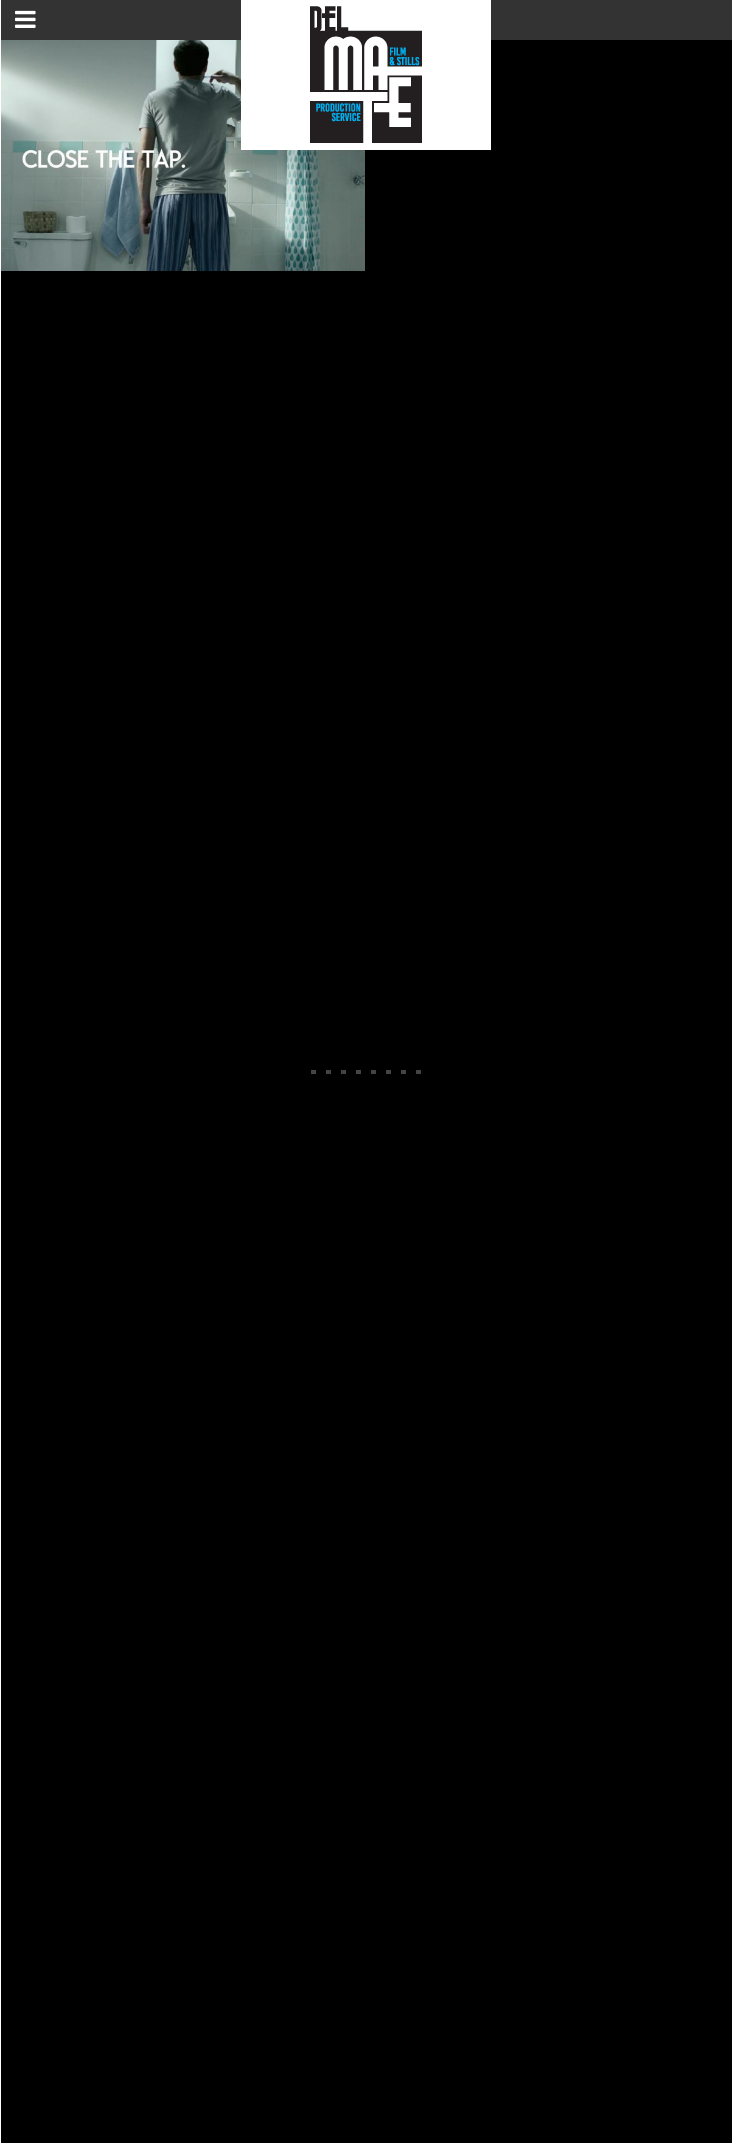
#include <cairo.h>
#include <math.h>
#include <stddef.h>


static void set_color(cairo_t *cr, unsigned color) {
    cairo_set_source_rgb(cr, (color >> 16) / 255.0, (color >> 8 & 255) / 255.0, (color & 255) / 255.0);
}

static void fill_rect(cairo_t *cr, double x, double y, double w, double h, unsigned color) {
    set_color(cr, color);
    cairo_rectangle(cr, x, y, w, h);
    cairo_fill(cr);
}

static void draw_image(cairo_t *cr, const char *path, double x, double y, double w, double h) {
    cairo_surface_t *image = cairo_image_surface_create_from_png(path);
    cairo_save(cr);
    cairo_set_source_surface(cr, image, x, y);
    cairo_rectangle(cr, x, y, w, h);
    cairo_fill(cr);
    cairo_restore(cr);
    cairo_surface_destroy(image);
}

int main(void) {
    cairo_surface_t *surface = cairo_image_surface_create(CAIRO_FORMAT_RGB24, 732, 2143);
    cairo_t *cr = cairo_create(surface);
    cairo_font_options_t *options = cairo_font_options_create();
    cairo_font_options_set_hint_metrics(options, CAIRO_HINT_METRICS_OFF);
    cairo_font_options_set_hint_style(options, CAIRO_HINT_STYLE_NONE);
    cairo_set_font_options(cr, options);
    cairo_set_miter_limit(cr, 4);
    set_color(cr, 0x000000);
    cairo_paint(cr);
    set_color(cr, 0xFFFFFF);
    cairo_new_path(cr);
    cairo_move_to(cr, -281, -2);
    cairo_line_to(cr, -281, 2143);
    cairo_line_to(cr, -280, 2143);
    cairo_line_to(cr, -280, 0);
    cairo_line_to(cr, 0, 0);
    cairo_line_to(cr, 0, 2143);
    cairo_line_to(cr, 1, 2143);
    cairo_line_to(cr, 1, -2);
    cairo_close_path(cr);
    cairo_fill(cr);
    fill_rect(cr, 1, 0, 731, 40, 0x333333);
    draw_image(cr, "assets/img1.png", 15, 10, 21, 18);
    draw_image(cr, "assets/img3.png", 1, 40, 364, 231);
    draw_image(cr, "assets/img2.png", 241, 0, 250, 150);
    fill_rect(cr, 311, 1070, 5, 4, 0x444444);
    fill_rect(cr, 326, 1070, 5, 4, 0x444444);
    fill_rect(cr, 341, 1070, 5, 4, 0x444444);
    fill_rect(cr, 356, 1070, 5, 4, 0x444444);
    fill_rect(cr, 371, 1070, 5, 4, 0x444444);
    fill_rect(cr, 386, 1070, 5, 4, 0x444444);
    fill_rect(cr, 401, 1070, 5, 4, 0x444444);
    fill_rect(cr, 416, 1070, 5, 4, 0x444444);
    cairo_surface_write_to_png(surface, "output.png");
    cairo_font_options_destroy(options);
    cairo_destroy(cr);
    cairo_surface_destroy(surface);
    return 0;
}
